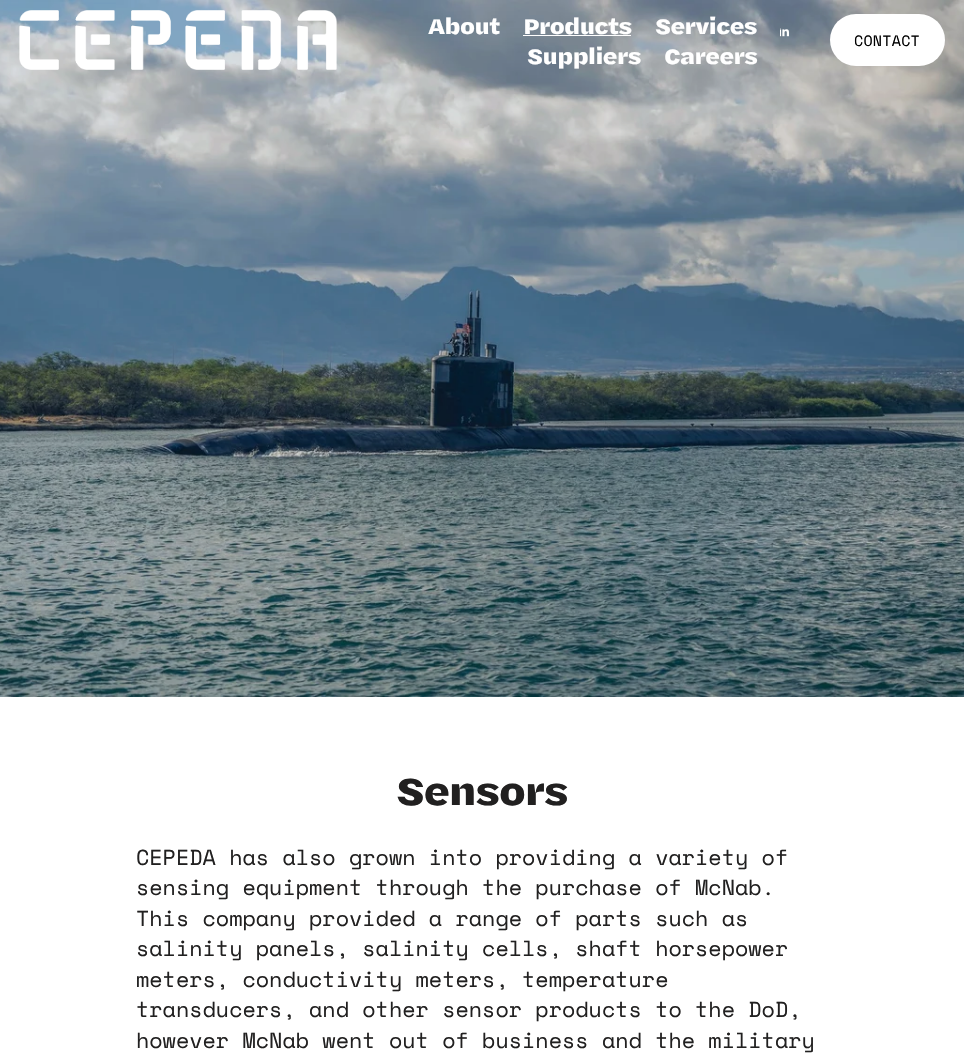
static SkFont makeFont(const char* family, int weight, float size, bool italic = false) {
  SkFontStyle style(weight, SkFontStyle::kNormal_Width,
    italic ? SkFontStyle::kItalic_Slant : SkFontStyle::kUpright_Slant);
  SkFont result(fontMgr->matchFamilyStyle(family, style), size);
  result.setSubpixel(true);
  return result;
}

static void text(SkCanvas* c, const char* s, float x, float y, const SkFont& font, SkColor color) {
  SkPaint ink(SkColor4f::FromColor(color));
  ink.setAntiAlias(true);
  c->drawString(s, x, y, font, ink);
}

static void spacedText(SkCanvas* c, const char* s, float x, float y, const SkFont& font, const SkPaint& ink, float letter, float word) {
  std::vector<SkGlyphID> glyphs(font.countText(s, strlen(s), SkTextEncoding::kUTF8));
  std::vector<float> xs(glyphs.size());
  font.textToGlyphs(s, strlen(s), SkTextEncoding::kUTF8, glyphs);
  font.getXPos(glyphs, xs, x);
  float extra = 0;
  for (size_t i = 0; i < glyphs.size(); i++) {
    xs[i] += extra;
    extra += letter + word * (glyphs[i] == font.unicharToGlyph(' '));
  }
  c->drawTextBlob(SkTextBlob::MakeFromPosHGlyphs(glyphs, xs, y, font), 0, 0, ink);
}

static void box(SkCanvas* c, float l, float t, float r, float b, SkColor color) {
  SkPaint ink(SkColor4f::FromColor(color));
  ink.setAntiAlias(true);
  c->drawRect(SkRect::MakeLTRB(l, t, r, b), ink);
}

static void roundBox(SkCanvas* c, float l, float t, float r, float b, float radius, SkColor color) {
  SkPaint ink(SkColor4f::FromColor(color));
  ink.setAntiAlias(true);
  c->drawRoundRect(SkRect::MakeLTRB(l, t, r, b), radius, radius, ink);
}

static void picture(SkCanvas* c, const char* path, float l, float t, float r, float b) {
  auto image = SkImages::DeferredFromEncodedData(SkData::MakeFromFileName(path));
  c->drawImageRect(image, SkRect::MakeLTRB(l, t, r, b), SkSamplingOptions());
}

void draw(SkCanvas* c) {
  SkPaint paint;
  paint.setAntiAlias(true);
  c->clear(0xffffffff);
  picture(c, "img_03.png", 0, 0, 964, 697);
  picture(c, "img_01.png", 19, 10, 337, 70);
  SkFont face1 = makeFont("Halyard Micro", 700, 21.75f);
  paint.setColor(0xffffffff);
  spacedText(c, "About", 428, 34, face1, paint, -1, 0);
  box(c, 523, 35, 631, 36, 0xffffffff);
  spacedText(c, "Products", 523, 34, face1, paint, -1, 0);
  spacedText(c, "Services", 655, 34, face1, paint, -1, 0);
  spacedText(c, "Suppliers", 527, 64, face1, paint, -1, 0);
  spacedText(c, "Careers", 664, 64, face1, paint, -1, 0);
  picture(c, "img_02.png", 780, 28, 789, 37);
  roundBox(c, 830, 14, 945, 66, 26, 0xffffffff);
  SkFont face2 = makeFont("Space Mono", 400, 15);
  paint.setColor(0xff000000);
  spacedText(c, "CONTACT", 854, 46, face2, paint, 0.25f, 0);
  SkFont face3 = makeFont("Halyard Micro", 700, 39);
  paint.setColor(0xff212020);
  spacedText(c, "Sensors", 396, 805, face3, paint, -2, 0);
  SkFont face4 = makeFont("Space Mono", 400, 21.75f);
  text(c, "CEPEDA has also grown into providing a variety of", 136, 865, face4, 0xff212020);
  text(c, "sensing equipment through the purchase of McNab.", 136, 895, face4, 0xff212020);
  text(c, "This company provided a range of parts such as", 136, 926, face4, 0xff212020);
  text(c, "salinity panels, salinity cells, shaft horsepower", 136, 956, face4, 0xff212020);
  text(c, "meters, conductivity meters, temperature", 136, 987, face4, 0xff212020);
  text(c, "transducers, and other sensor products to the DoD,", 136, 1017, face4, 0xff212020);
  text(c, "however McNab went out of business and the military", 136, 1048, face4, 0xff212020);
}
